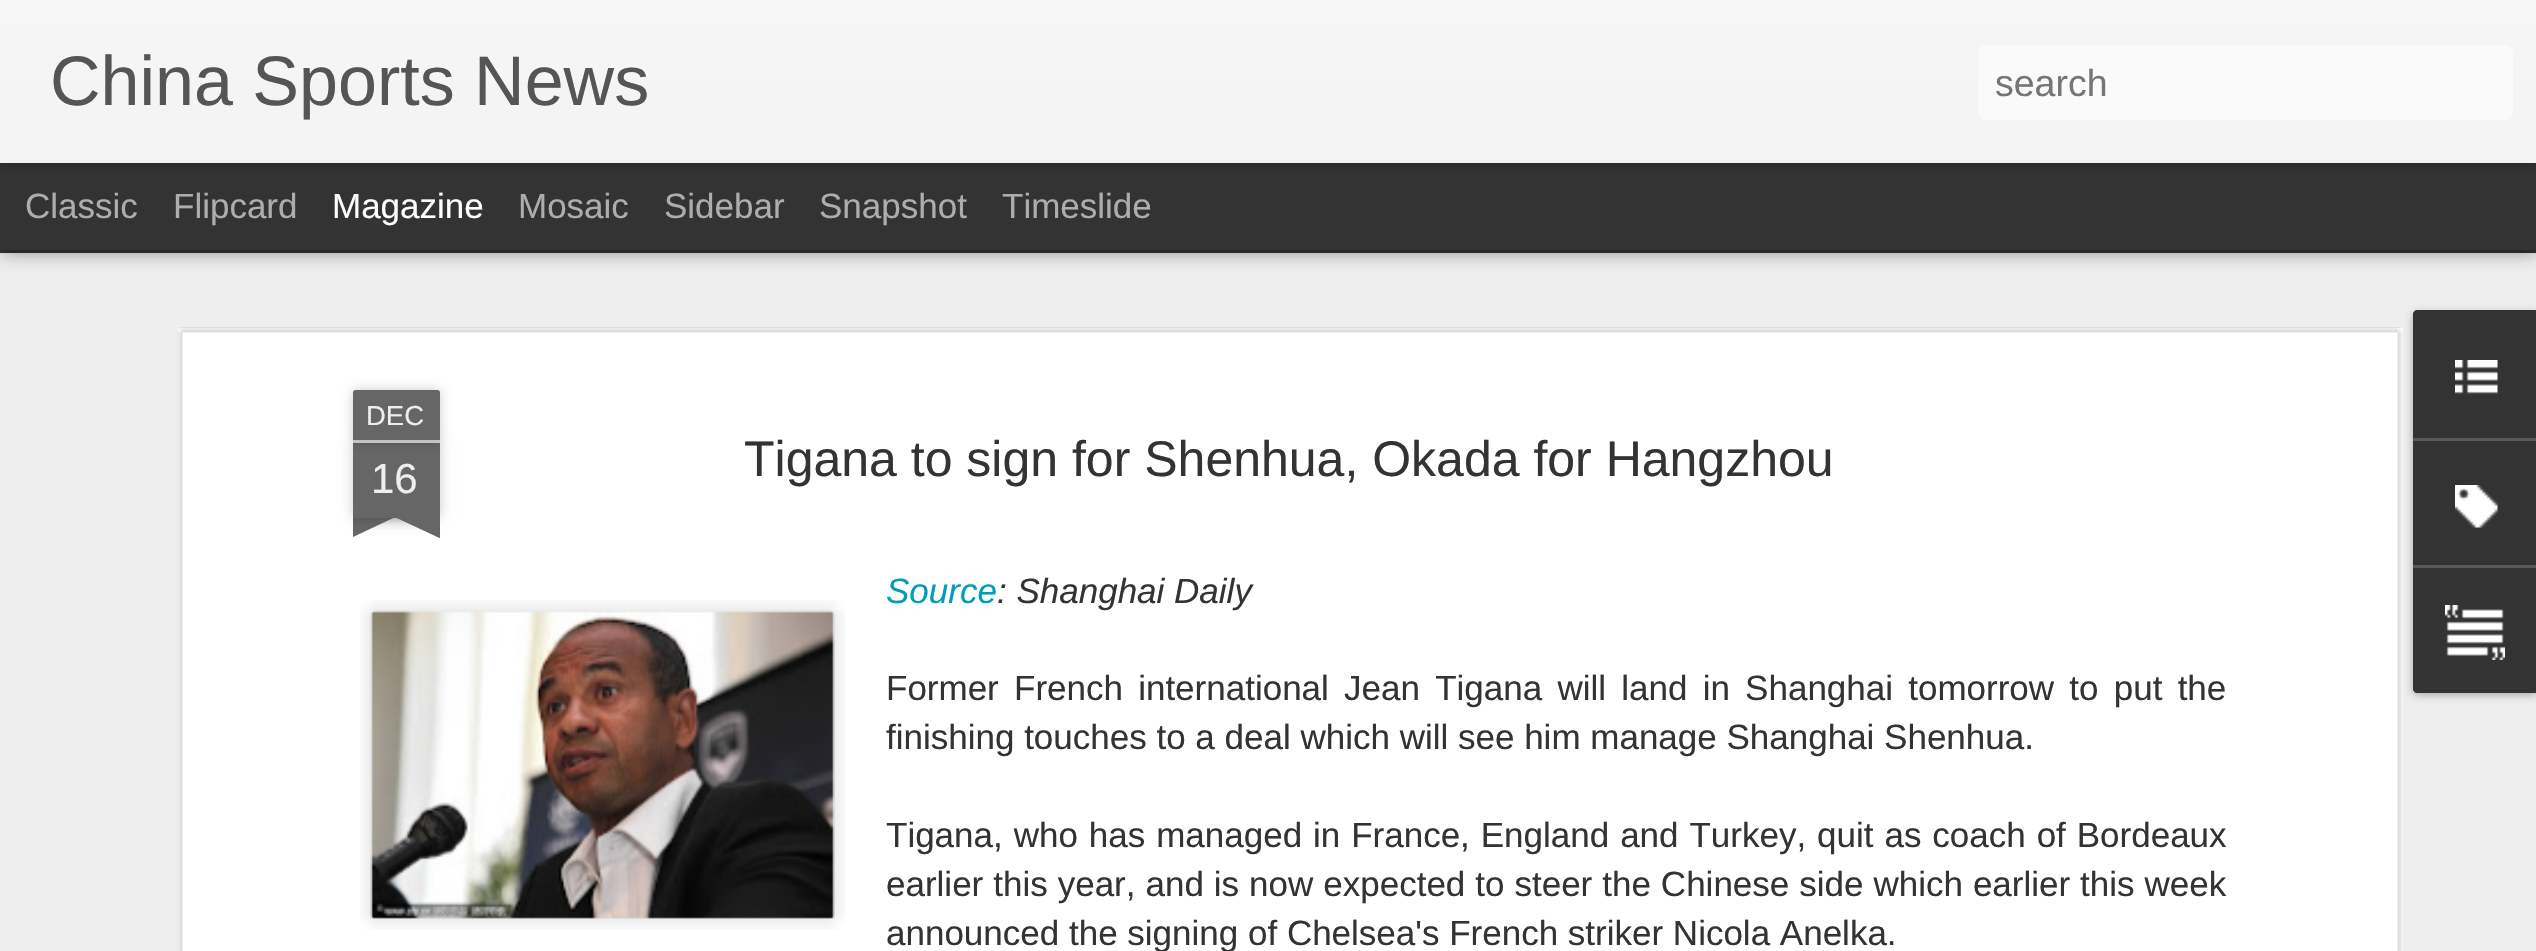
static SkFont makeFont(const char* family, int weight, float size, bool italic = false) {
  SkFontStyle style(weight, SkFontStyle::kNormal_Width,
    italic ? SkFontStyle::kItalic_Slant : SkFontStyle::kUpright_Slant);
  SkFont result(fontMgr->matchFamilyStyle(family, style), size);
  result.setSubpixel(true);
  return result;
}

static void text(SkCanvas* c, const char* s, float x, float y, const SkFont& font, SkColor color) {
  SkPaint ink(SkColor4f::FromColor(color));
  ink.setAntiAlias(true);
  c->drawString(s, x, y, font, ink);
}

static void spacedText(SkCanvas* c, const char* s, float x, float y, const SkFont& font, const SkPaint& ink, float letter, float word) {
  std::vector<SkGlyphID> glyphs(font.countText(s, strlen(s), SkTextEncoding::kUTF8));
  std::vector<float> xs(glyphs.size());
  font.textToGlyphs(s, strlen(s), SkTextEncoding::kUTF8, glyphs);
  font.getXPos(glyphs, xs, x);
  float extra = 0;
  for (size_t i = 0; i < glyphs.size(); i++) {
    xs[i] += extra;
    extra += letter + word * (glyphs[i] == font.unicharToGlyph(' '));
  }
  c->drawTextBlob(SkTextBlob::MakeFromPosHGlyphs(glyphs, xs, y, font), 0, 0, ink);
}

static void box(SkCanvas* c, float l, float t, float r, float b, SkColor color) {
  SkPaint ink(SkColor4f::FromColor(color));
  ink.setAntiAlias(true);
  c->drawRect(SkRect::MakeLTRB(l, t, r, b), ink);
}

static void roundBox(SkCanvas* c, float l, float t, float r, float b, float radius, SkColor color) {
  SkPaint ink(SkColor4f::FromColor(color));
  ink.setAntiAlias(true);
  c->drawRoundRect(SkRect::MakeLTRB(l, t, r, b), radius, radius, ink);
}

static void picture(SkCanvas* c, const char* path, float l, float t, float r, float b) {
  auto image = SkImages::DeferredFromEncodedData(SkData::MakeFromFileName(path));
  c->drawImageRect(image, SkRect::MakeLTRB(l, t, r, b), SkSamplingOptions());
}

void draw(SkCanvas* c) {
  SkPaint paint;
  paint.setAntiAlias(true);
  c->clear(0xff333333);
  box(c, 0, 253, 2536, 951, 0xffeeeeee);
  paint.setColor(0x80000000);
  paint.setMaskFilter(SkMaskFilter::MakeBlur(kNormal_SkBlurStyle, 10));
  c->drawRect(SkRect::MakeLTRB(0, 163, 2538, 250), paint);
  paint.setMaskFilter(nullptr);
  box(c, 0, 163, 2536, 250, 0xff333333);
  paint.setColor(0x4d000000);
  paint.setMaskFilter(SkMaskFilter::MakeBlur(kNormal_SkBlurStyle, 6));
  c->drawRect(SkRect::MakeLTRB(0, 0, 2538, 163), paint);
  paint.setMaskFilter(nullptr);
  {
    const SkColor colors[] = {0xfff6f6f6, 0xfff3f3f3};
    const float stops[] = {0, 1};
    const SkPoint ends[] = {{0, 0}, {0, 163}};
    paint.setShader(SkGradientShader::MakeLinear(ends, colors, stops, 2, SkTileMode::kClamp));
    paint.setAlpha(255);
  }
  c->drawRect(SkRect::MakeLTRB(0, 0, 2536, 163), paint);
  SkFont face1 = makeFont("Liberation Sans", 400, 70);
  text(c, "China Sports News", 50, 105, face1, 0xff555555);
  roundBox(c, 1978, 45, 2513, 120, 8, 0xfffafafa);
  SkFont face2 = makeFont("Liberation Sans", 400, 37.5f);
  text(c, "search", 1995, 96, face2, 0xff757575);
  SkFont face3 = makeFont("Liberation Sans", 400, 35);
  text(c, "Classic", 25, 218, face3, 0xffadadad);
  text(c, "Flipcard", 173, 218, face3, 0xffadadad);
  text(c, "Magazine", 332, 218, face3, 0xffffffff);
  text(c, "Mosaic", 518, 218, face3, 0xffadadad);
  text(c, "Sidebar", 664, 218, face3, 0xffadadad);
  text(c, "Snapshot", 819, 218, face3, 0xffadadad);
  text(c, "Timeslide", 1002, 218, face3, 0xffadadad);
  box(c, 178, 328, 2403, 951, 0xffffffff);
  picture(c, "img_01.png", 177, 327, 2403, 951);
  paint.setShader(nullptr);
  paint.setColor(0x33000000);
  paint.setMaskFilter(SkMaskFilter::MakeBlur(kNormal_SkBlurStyle, 6));
  c->drawRect(SkRect::MakeLTRB(353, 443, 440, 518), paint);
  paint.setMaskFilter(nullptr);
  box(c, 353, 443, 440, 518, 0xff666666);
  paint.setMaskFilter(SkMaskFilter::MakeBlur(kNormal_SkBlurStyle, 6));
  c->drawRoundRect(SkRect::MakeLTRB(353, 390, 440, 443), 2.5f, 2.5f, paint);
  paint.setMaskFilter(nullptr);
  paint.setColor(0xff666666);
  c->drawPath(SkPathBuilder().moveTo(355.5f, 390).lineTo(437.5f, 390).cubicTo(439, 390, 440, 391, 440, 392.5f).lineTo(440, 443).lineTo(353, 443).lineTo(353, 392.5f).cubicTo(353, 391, 354, 390, 355.5f, 390).close().detach(), paint);
  box(c, 353, 440, 440, 443, 0xffc2c2c2);
  SkFont face4 = makeFont("Liberation Sans", 400, 27.5f);
  text(c, "DEC", 366, 425, face4, 0xffeeeeee);
  SkFont face5 = makeFont("Liberation Sans", 400, 42);
  text(c, "16", 371, 493, face5, 0xffeeeeee);
  c->save();
  c->clipRect(SkRect::MakeLTRB(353, 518, 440, 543));
  paint.setColor(0x33000000);
  paint.setMaskFilter(SkMaskFilter::MakeBlur(kNormal_SkBlurStyle, 6.5f));
  c->drawRect(SkRect::MakeLTRB(330, 493, 455, 518), paint);
  paint.setMaskFilter(nullptr);
  c->restore();
  c->save();
  c->clipRect(SkRect::MakeLTRB(353, 518, 440, 543));
  paint.setColor(0xff666666);
  c->drawPath(SkPathBuilder().moveTo(329, 520).lineTo(443, 467).lineTo(453, 490).lineTo(340, 543).close().detach(), paint);
  c->restore();
  c->save();
  c->clipRect(SkRect::MakeLTRB(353, 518, 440, 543));
  paint.setColor(0x33000000);
  paint.setMaskFilter(SkMaskFilter::MakeBlur(kNormal_SkBlurStyle, 6.5f));
  c->drawRect(SkRect::MakeLTRB(338, 493, 463, 518), paint);
  paint.setMaskFilter(nullptr);
  c->restore();
  c->save();
  c->clipRect(SkRect::MakeLTRB(353, 518, 440, 543));
  paint.setColor(0xff666666);
  c->drawPath(SkPathBuilder().moveTo(347, 467).lineTo(461, 520).lineTo(450, 543).lineTo(337, 490).close().detach(), paint);
  c->restore();
  SkFont face6 = makeFont("Liberation Sans", 400, 50);
  text(c, "Tigana to sign for Shenhua, Okada for Hangzhou", 744, 476, face6, 0xff333333);
  SkFont face7 = makeFont("Liberation Sans", 400, 35, true);
  text(c, "Source", 886, 603, face7, 0xff009eb8);
  text(c, ": Shanghai Daily", 997, 603, face7, 0xff333333);
  picture(c, "img_02.png", 360, 600, 845, 930);
  picture(c, "img_03.png", 370, 610, 835, 919);
  paint.setColor(0xff333333);
  spacedText(c, "Former French international Jean Tigana will land in Shanghai tomorrow to put the", 886, 700, face3, paint, 0, 5.5f);
  text(c, "finishing touches to a deal which will see him manage Shanghai Shenhua.", 886, 749, face3, 0xff333333);
  spacedText(c, "Tigana, who has managed in France, England and Turkey, quit as coach of Bordeaux", 886, 847, face3, paint, 0, 1.2f);
  spacedText(c, "earlier this year, and is now expected to steer the Chinese side which earlier this week", 886, 896, face3, paint, 0, 0.25f);
  text(c, "announced the signing of Chelsea's French striker Nicola Anelka.", 886, 945, face3, 0xff333333);
  paint.setColor(0x4d000000);
  paint.setMaskFilter(SkMaskFilter::MakeBlur(kNormal_SkBlurStyle, 4));
  c->drawRoundRect(SkRect::MakeLTRB(2413, 313, 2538, 695), 5, 5, paint);
  paint.setMaskFilter(nullptr);
  paint.setColor(0xff333333);
  c->drawPath(SkPathBuilder().moveTo(2418, 310).lineTo(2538, 310).lineTo(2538, 693).lineTo(2418, 693).cubicTo(2415, 693, 2413, 691, 2413, 688).lineTo(2413, 315).cubicTo(2413, 312, 2415, 310, 2418, 310).close().detach(), paint);
  c->drawPath(SkPathBuilder().moveTo(2418, 310).lineTo(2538, 310).lineTo(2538, 438).lineTo(2413, 438).lineTo(2413, 315).cubicTo(2413, 312, 2415, 310, 2418, 310).close().detach(), paint);
  picture(c, "img_04.png", 2455, 360, 2498, 394);
  box(c, 2413, 438, 2536, 441, 0xff585858);
  picture(c, "img_05.png", 2455, 485, 2498, 528);
  c->drawPath(SkPathBuilder().moveTo(2413, 565).lineTo(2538, 565).lineTo(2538, 693).lineTo(2418, 693).cubicTo(2415, 693, 2413, 691, 2413, 688).close().detach(), paint);
  box(c, 2413, 565, 2536, 568, 0xff585858);
  picture(c, "img_06.png", 2445, 605, 2505, 660);
}
